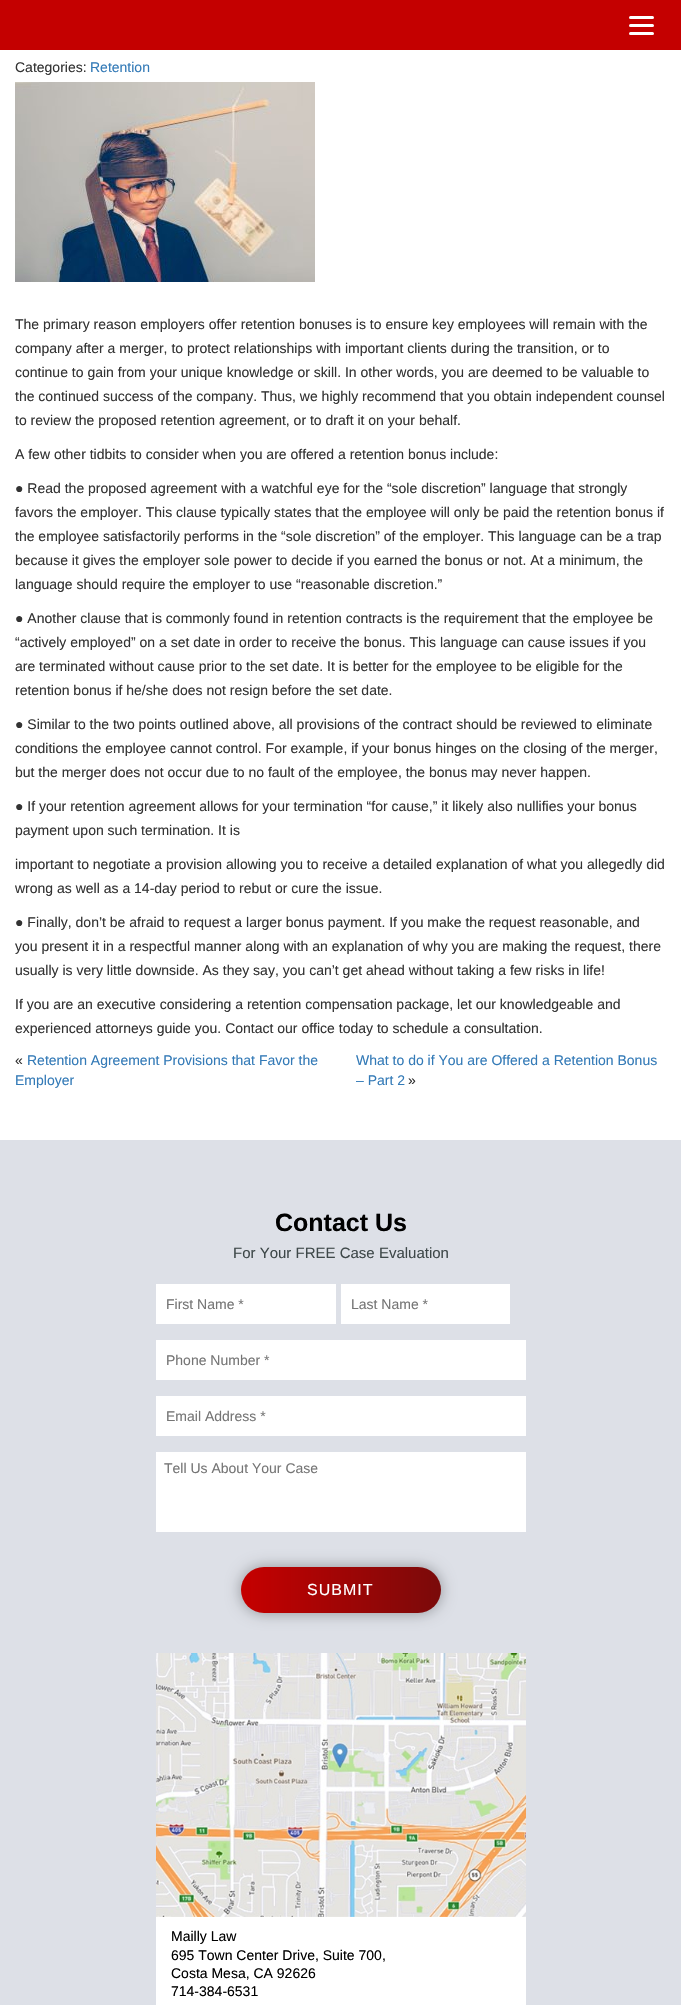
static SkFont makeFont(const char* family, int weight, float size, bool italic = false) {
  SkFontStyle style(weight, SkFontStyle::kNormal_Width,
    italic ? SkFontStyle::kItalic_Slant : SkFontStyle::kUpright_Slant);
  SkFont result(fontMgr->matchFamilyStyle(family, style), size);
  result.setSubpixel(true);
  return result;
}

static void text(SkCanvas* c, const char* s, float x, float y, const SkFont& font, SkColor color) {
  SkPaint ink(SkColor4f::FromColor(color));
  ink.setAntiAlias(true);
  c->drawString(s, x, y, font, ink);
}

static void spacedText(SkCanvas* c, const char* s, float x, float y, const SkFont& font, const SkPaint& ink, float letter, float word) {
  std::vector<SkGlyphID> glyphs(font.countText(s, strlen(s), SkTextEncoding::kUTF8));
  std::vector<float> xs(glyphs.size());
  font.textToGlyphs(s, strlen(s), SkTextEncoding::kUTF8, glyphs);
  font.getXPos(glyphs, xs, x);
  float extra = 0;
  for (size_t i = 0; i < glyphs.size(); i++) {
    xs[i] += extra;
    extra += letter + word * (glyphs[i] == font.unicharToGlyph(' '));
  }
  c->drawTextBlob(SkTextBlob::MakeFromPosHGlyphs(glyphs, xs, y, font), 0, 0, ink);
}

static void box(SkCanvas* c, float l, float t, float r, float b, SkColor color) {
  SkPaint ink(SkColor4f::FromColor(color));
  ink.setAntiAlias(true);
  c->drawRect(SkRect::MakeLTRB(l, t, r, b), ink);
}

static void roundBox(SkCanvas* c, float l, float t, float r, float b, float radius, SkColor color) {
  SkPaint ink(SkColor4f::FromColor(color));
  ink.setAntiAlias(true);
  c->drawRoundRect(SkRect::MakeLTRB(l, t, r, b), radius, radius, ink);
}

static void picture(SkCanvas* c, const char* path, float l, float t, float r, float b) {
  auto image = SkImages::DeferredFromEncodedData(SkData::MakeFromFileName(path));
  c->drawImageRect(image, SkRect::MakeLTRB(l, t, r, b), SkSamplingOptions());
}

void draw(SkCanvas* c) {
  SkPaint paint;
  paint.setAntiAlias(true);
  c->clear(0xffffffff);
  box(c, 0, 0, 681, 50, 0xffc40000);
  roundBox(c, 629, 24, 654, 27, 1.5f, 0xffffffff);
  roundBox(c, 629, 16, 654, 19, 1.5f, 0xffffffff);
  roundBox(c, 629, 32, 654, 35, 1.5f, 0xffffffff);
  SkFont face1 = makeFont("Liberation Sans", 400, 14);
  text(c, "Categories:", 15, 72, face1, 0xff333333);
  text(c, "Retention", 90, 72, face1, 0xff337ab7);
  picture(c, "img_01.png", 15, 82, 315, 282);
  text(c, "The primary reason employers offer retention bonuses is to ensure key employees will remain with the", 15, 329, face1, 0xff333333);
  text(c, "company after a merger, to protect relationships with important clients during the transition, or to", 15, 353, face1, 0xff333333);
  text(c, "continue to gain from your unique knowledge or skill. In other words, you are deemed to be valuable to", 15, 377, face1, 0xff333333);
  text(c, "the continued success of the company. Thus, we highly recommend that you obtain independent counsel", 15, 401, face1, 0xff333333);
  text(c, "to review the proposed retention agreement, or to draft it on your behalf.", 15, 425, face1, 0xff333333);
  text(c, "A few other tidbits to consider when you are offered a retention bonus include:", 15, 459, face1, 0xff333333);
  text(c, "● Read the proposed agreement with a watchful eye for the “sole discretion” language that strongly", 15, 493, face1, 0xff333333);
  text(c, "favors the employer. This clause typically states that the employee will only be paid the retention bonus if", 15, 517, face1, 0xff333333);
  text(c, "the employee satisfactorily performs in the “sole discretion” of the employer. This language can be a trap", 15, 541, face1, 0xff333333);
  text(c, "because it gives the employer sole power to decide if you earned the bonus or not. At a minimum, the", 15, 565, face1, 0xff333333);
  text(c, "language should require the employer to use “reasonable discretion.”", 15, 589, face1, 0xff333333);
  text(c, "● Another clause that is commonly found in retention contracts is the requirement that the employee be", 15, 623, face1, 0xff333333);
  text(c, "“actively employed” on a set date in order to receive the bonus. This language can cause issues if you", 15, 647, face1, 0xff333333);
  text(c, "are terminated without cause prior to the set date. It is better for the employee to be eligible for the", 15, 671, face1, 0xff333333);
  text(c, "retention bonus if he/she does not resign before the set date.", 15, 695, face1, 0xff333333);
  text(c, "● Similar to the two points outlined above, all provisions of the contract should be reviewed to eliminate", 15, 729, face1, 0xff333333);
  text(c, "conditions the employee cannot control. For example, if your bonus hinges on the closing of the merger,", 15, 753, face1, 0xff333333);
  text(c, "but the merger does not occur due to no fault of the employee, the bonus may never happen.", 15, 777, face1, 0xff333333);
  text(c, "● If your retention agreement allows for your termination “for cause,” it likely also nullifies your bonus", 15, 811, face1, 0xff333333);
  text(c, "payment upon such termination. It is", 15, 835, face1, 0xff333333);
  text(c, "important to negotiate a provision allowing you to receive a detailed explanation of what you allegedly did", 15, 869, face1, 0xff333333);
  text(c, "wrong as well as a 14-day period to rebut or cure the issue.", 15, 893, face1, 0xff333333);
  text(c, "● Finally, don’t be afraid to request a larger bonus payment. If you make the request reasonable, and", 15, 927, face1, 0xff333333);
  text(c, "you present it in a respectful manner along with an explanation of why you are making the request, there", 15, 951, face1, 0xff333333);
  text(c, "usually is very little downside. As they say, you can’t get ahead without taking a few risks in life!", 15, 975, face1, 0xff333333);
  text(c, "If you are an executive considering a retention compensation package, let our knowledgeable and", 15, 1009, face1, 0xff333333);
  text(c, "experienced attorneys guide you. Contact our office today to schedule a consultation.", 15, 1033, face1, 0xff333333);
  text(c, "«", 15, 1065, face1, 0xff333333);
  text(c, "Retention Agreement Provisions that Favor the", 27, 1065, face1, 0xff337ab7);
  text(c, "Employer", 15, 1085, face1, 0xff337ab7);
  text(c, "What to do if You are Offered a Retention Bonus", 356, 1065, face1, 0xff337ab7);
  text(c, "– Part 2", 356, 1085, face1, 0xff337ab7);
  text(c, "»", 408, 1085, face1, 0xff333333);
  box(c, 0, 1140, 681, 2005, 0xffdde0e7);
  SkFont face2 = makeFont("Liberation Sans", 700, 25);
  text(c, "Contact Us", 275, 1231, face2, 0xff000000);
  SkFont face3 = makeFont("Liberation Sans", 400, 15);
  text(c, "For Your FREE Case Evaluation", 233, 1258, face3, 0xff3e4849);
  box(c, 156, 1284, 336, 1324, 0xffffffff);
  text(c, "First Name *", 166, 1309, face1, 0xff757575);
  box(c, 341, 1284, 510, 1324, 0xffffffff);
  text(c, "Last Name *", 351, 1309, face1, 0xff757575);
  box(c, 156, 1340, 526, 1380, 0xffffffff);
  text(c, "Phone Number *", 166, 1365, face1, 0xff757575);
  box(c, 156, 1396, 526, 1436, 0xffffffff);
  text(c, "Email Address *", 166, 1421, face1, 0xff757575);
  box(c, 156, 1452, 526, 1532, 0xffffffff);
  text(c, "Tell Us About Your Case", 164, 1473, face1, 0xff757575);
  paint.setColor(0x59000000);
  paint.setMaskFilter(SkMaskFilter::MakeBlur(kNormal_SkBlurStyle, 7.5f));
  c->drawRoundRect(SkRect::MakeLTRB(241, 1567, 441, 1613), 23, 23, paint);
  paint.setMaskFilter(nullptr);
  {
    const SkColor colors[] = {0xffc60000, 0xff7a0a0a};
    const float stops[] = {0, 1};
    const SkPoint ends[] = {{241, 1590}, {441, 1590}};
    paint.setShader(SkGradientShader::MakeLinear(ends, colors, stops, 2, SkTileMode::kClamp));
    paint.setAlpha(255);
  }
  c->drawRoundRect(SkRect::MakeLTRB(241, 1567, 441, 1613), 23, 23, paint);
  SkFont face4 = makeFont("Liberation Sans", 400, 16);
  paint.setShader(nullptr);
  paint.setColor(0xffffffff);
  spacedText(c, "SUBMIT", 307, 1595, face4, paint, 1, 0);
  picture(c, "img_02.png", 156, 1653, 526, 1917);
  box(c, 156, 1917, 526, 2005, 0xffffffff);
  text(c, "Mailly Law", 171, 1941, face1, 0xff000000);
  text(c, "695 Town Center Drive, Suite 700,", 171, 1960, face1, 0xff000000);
  text(c, "Costa Mesa, CA 92626", 171, 1978, face1, 0xff000000);
  text(c, "714-384-6531", 171, 1996, face1, 0xff000000);
}
